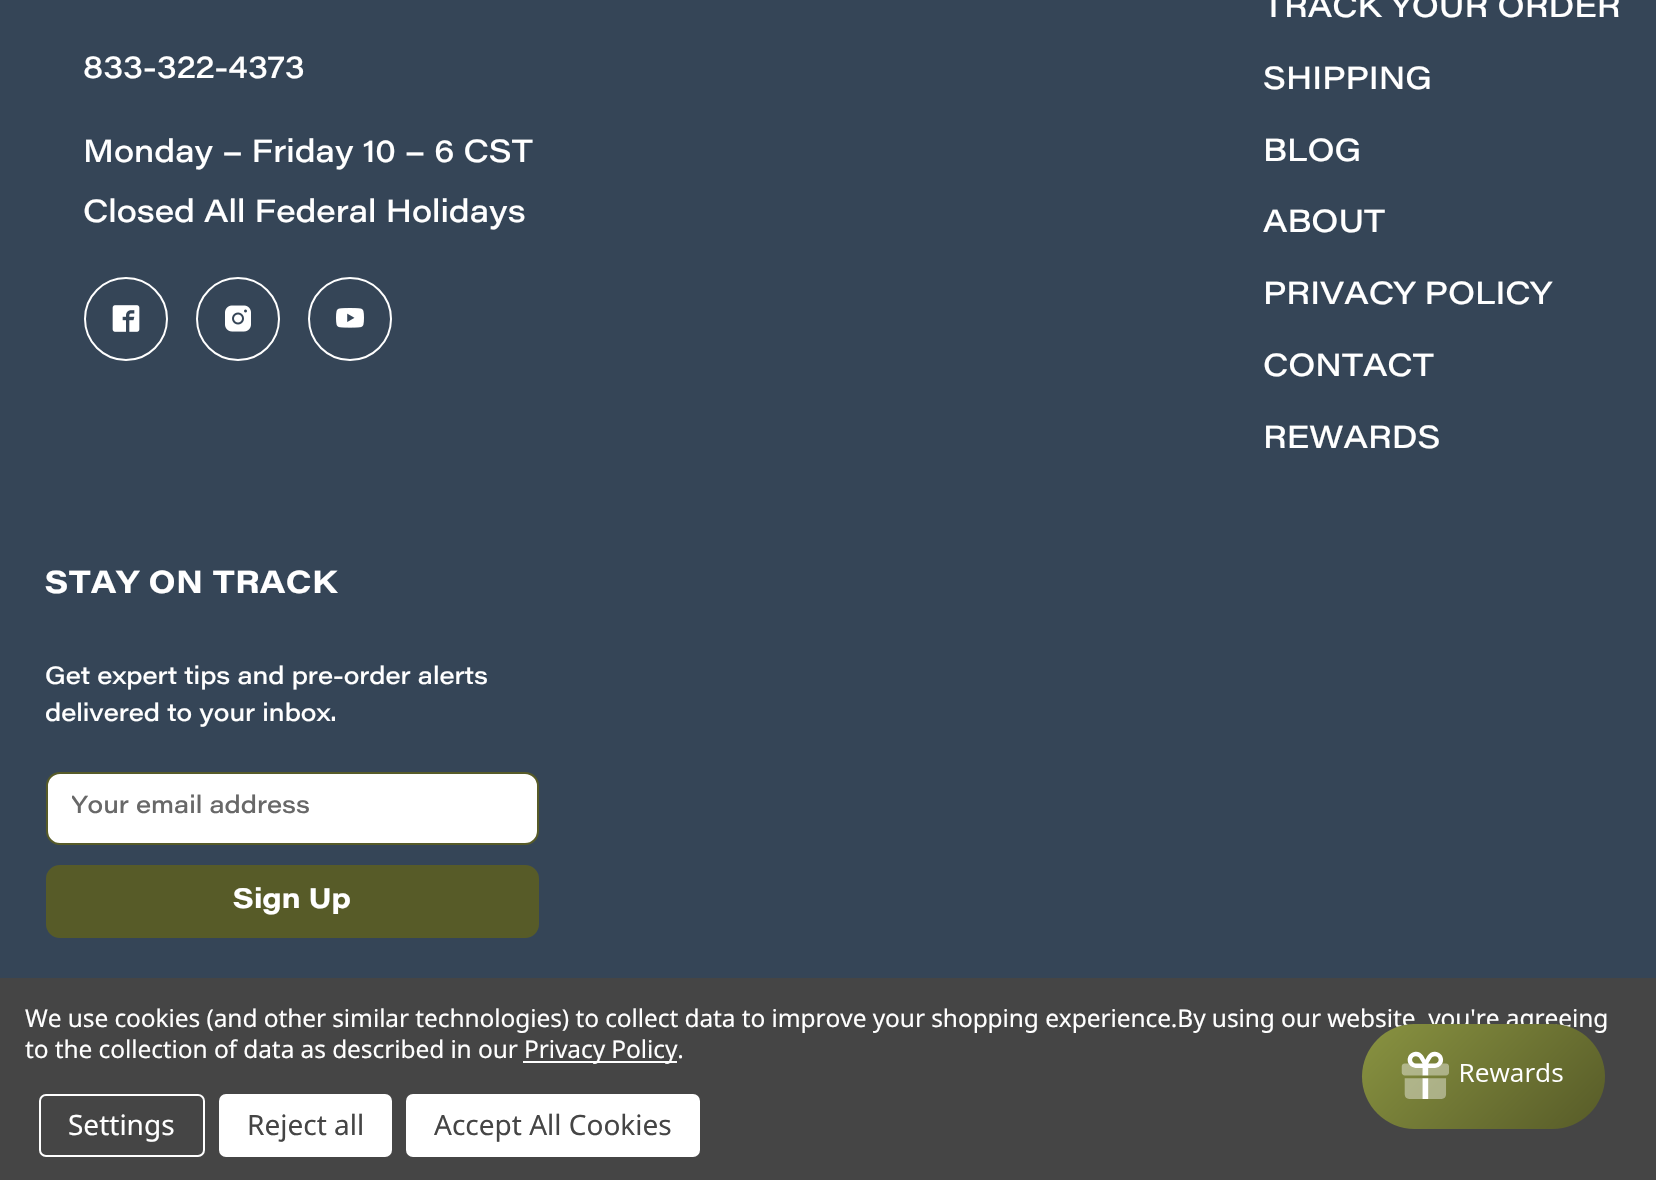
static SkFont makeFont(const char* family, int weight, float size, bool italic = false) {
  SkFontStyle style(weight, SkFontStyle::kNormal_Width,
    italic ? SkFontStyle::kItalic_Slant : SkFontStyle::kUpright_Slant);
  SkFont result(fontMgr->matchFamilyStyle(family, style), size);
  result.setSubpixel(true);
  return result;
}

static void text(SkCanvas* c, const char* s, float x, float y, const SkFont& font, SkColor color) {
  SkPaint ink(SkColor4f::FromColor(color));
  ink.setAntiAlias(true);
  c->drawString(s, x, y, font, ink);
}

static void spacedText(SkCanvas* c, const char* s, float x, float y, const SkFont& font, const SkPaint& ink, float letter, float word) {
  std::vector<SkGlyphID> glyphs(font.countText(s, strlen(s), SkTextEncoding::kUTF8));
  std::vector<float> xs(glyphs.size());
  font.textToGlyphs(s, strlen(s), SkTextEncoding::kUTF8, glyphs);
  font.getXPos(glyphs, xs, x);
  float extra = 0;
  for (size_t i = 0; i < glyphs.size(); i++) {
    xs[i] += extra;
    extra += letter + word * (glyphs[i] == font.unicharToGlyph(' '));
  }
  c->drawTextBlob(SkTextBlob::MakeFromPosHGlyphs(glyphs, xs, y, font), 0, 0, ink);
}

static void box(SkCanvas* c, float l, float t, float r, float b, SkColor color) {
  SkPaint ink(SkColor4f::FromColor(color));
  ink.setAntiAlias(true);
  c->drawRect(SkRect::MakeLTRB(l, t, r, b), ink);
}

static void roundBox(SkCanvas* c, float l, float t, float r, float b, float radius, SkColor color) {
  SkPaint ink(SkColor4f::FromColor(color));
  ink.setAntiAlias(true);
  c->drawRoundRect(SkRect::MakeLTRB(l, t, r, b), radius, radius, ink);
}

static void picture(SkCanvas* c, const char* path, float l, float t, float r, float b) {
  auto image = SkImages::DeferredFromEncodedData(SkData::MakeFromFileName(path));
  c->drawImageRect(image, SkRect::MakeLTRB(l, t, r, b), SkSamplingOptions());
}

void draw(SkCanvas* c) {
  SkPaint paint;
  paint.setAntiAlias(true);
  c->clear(0xff354557);
  SkFont face1 = makeFont("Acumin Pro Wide", 500, 31.5f);
  text(c, "833-322-4373", 83, 78, face1, 0xffffffff);
  text(c, "Monday – Friday 10 – 6 CST", 83, 162, face1, 0xffffffff);
  text(c, "Closed All Federal Holidays", 83, 222, face1, 0xffffffff);
  paint.setStyle(SkPaint::kStroke_Style);
  paint.setStrokeWidth(2);
  paint.setColor(0xffffffff);
  c->drawCircle(126, 319, 41, paint);
  picture(c, "img_01.png", 112, 305, 140, 332);
  c->drawCircle(238, 319, 41, paint);
  picture(c, "img_02.png", 225, 305, 251, 332);
  c->drawCircle(350, 319, 41, paint);
  picture(c, "img_03.png", 336, 308, 364, 328);
  text(c, "TRACK YOUR ORDER", 1263, 17, face1, 0xffffffff);
  text(c, "SHIPPING", 1263, 89, face1, 0xffffffff);
  text(c, "BLOG", 1263, 161, face1, 0xffffffff);
  text(c, "ABOUT", 1263, 232, face1, 0xffffffff);
  text(c, "PRIVACY POLICY", 1263, 304, face1, 0xffffffff);
  text(c, "CONTACT", 1263, 376, face1, 0xffffffff);
  text(c, "REWARDS", 1263, 448, face1, 0xffffffff);
  SkFont face2 = makeFont("Acumin Pro Wide", 700, 31.5f);
  paint.setStyle(SkPaint::kFill_Style);
  spacedText(c, "STAY ON TRACK", 45, 593, face2, paint, 0.5f, 0);
  SkFont face3 = makeFont("Acumin Pro Wide", 500, 24.5f);
  text(c, "Get expert tips and pre-order alerts", 45, 684, face3, 0xffffffff);
  text(c, "delivered to your inbox.", 45, 721, face3, 0xffffffff);
  c->drawRoundRect(SkRect::MakeLTRB(47, 773, 538, 844), 13, 13, paint);
  paint.setStyle(SkPaint::kStroke_Style);
  paint.setColor(0xff575b28);
  c->drawRoundRect(SkRect::MakeLTRB(47, 773, 538, 844), 13, 13, paint);
  c->save();
  c->clipRect(SkRect::MakeLTRB(72, 793, 513, 823));
  text(c, "Your email address", 71, 813, face3, 0xff686868);
  c->restore();
  paint.setStyle(SkPaint::kFill_Style);
  c->drawRoundRect(SkRect::MakeLTRB(47, 866, 538, 937), 13, 13, paint);
  paint.setStyle(SkPaint::kStroke_Style);
  c->drawRoundRect(SkRect::MakeLTRB(47, 866, 538, 937), 13, 13, paint);
  SkFont face4 = makeFont("Acumin Pro Wide", 700, 28);
  text(c, "Sign Up", 233, 908, face4, 0xffffffff);
  box(c, 0, 978, 1656, 1180, 0xff454545);
  SkFont face5 = makeFont("Noto Sans", 400, 24.5f);
  paint.setStyle(SkPaint::kFill_Style);
  paint.setColor(0xffffffff);
  spacedText(c, "We use cookies (and other similar technologies) to collect data to improve your shopping experience.By using our website, you're agreeing", 25, 1027, face5, paint, -0.09f, 0);
  spacedText(c, "to the collection of data as described in our", 25, 1058, face5, paint, -0.09f, 0);
  box(c, 523, 1061, 677, 1063, 0xffffffff);
  spacedText(c, "Privacy Policy.", 524, 1058, face5, paint, -0.09f, 0);
  paint.setStyle(SkPaint::kStroke_Style);
  c->drawRoundRect(SkRect::MakeLTRB(40, 1095, 204, 1156), 6, 6, paint);
  SkFont face6 = makeFont("Noto Sans", 400, 28);
  text(c, "Settings", 68, 1135, face6, 0xffffffff);
  roundBox(c, 219, 1094, 392, 1157, 7, 0xffffffff);
  text(c, "Reject all", 247, 1135, face6, 0xff454545);
  roundBox(c, 406, 1094, 700, 1157, 7, 0xffffffff);
  text(c, "Accept All Cookies", 434, 1135, face6, 0xff454545);
  paint.setStyle(SkPaint::kFill_Style);
  {
    const SkColor colors[] = {0xff899341, 0xff575b28};
    const float stops[] = {0, 1};
    const SkPoint ends[] = {{1396, 989}, {1570, 1163}};
    paint.setShader(SkGradientShader::MakeLinear(ends, colors, stops, 2, SkTileMode::kClamp));
    paint.setAlpha(255);
  }
  c->drawRoundRect(SkRect::MakeLTRB(1362, 1024, 1605, 1129), 52.5f, 52.5f, paint);
  picture(c, "img_04.png", 1401, 1051, 1563, 1099);
}
